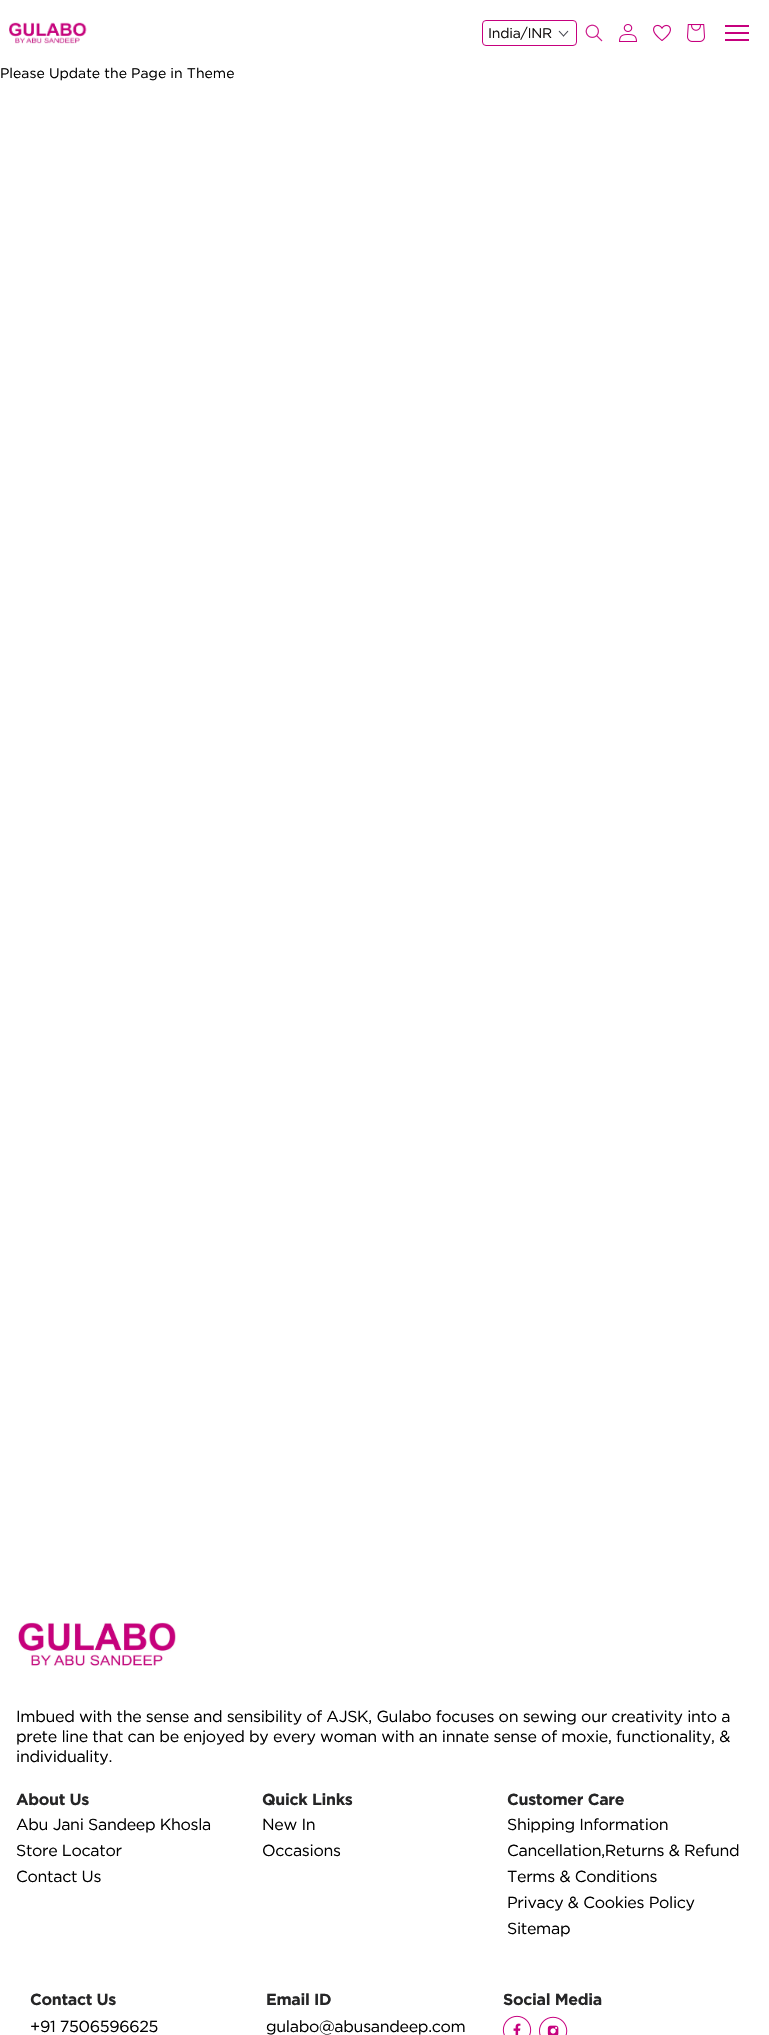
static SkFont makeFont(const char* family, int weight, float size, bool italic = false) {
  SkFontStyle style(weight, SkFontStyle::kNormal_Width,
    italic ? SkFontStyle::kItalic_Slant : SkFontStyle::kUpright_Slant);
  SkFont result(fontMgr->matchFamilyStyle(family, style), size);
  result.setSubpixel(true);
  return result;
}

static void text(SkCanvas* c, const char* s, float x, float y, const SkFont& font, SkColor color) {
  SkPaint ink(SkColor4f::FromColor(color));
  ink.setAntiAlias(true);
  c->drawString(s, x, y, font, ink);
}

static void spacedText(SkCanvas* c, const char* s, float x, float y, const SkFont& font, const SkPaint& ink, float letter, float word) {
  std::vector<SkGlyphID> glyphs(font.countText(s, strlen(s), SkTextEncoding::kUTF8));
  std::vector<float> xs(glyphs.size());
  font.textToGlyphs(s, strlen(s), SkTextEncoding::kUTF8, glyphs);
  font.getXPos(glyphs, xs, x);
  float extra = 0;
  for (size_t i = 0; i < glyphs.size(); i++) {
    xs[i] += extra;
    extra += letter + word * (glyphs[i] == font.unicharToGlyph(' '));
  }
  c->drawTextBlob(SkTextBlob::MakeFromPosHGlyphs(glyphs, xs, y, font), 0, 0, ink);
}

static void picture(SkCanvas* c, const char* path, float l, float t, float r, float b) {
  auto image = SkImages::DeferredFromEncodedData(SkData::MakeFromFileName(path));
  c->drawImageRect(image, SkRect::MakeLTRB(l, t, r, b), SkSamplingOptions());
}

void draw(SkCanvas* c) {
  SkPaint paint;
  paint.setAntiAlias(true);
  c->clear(0xffffffff);
  picture(c, "img_01.png", 9, 22, 87, 44);
  paint.setStyle(SkPaint::kStroke_Style);
  paint.setStrokeWidth(1);
  paint.setColor(0xffc6007e);
  c->drawRoundRect(SkRect::MakeLTRB(482.5f, 20.5f, 576.5f, 45.5f), 3.5f, 3.5f, paint);
  SkFont face1 = makeFont("Gotham", 400, 14);
  paint.setStyle(SkPaint::kFill_Style);
  paint.setColor(0xff110d0d);
  spacedText(c, "India/INR", 488, 38, face1, paint, -0.25f, 0);
  picture(c, "img_02.png", 558, 30, 569, 37);
  picture(c, "img_03.png", 585, 24, 603, 42);
  picture(c, "img_04.png", 619, 24, 637, 42);
  picture(c, "img_05.png", 653, 24, 671, 41);
  picture(c, "img_06.png", 687, 24, 705, 42);
  picture(c, "img_07.png", 725, 25, 749, 41);
  text(c, "Please Update the Page in Theme", 0, 78, face1, 0xff000000);
  picture(c, "img_08.png", 18, 1622, 176, 1666);
  SkFont face2 = makeFont("Gotham", 400, 16);
  paint.setColor(0xff000000);
  spacedText(c, "Imbued with the sense and sensibility of AJSK, Gulabo focuses on sewing our creativity into a", 16, 1722, face2, paint, -0.32f, 0);
  spacedText(c, "prete line that can be enjoyed by every woman with an innate sense of moxie, functionality, &", 16, 1742, face2, paint, -0.32f, 0);
  spacedText(c, "individuality.", 16, 1762, face2, paint, -0.32f, 0);
  SkFont face3 = makeFont("Gotham", 700, 16);
  paint.setColor(0xff262627);
  spacedText(c, "About Us", 16, 1805, face3, paint, -0.32f, 0);
  paint.setColor(0xff000000);
  spacedText(c, "Abu Jani Sandeep Khosla", 16, 1830, face2, paint, -0.32f, 0);
  spacedText(c, "Store Locator", 16, 1856, face2, paint, -0.32f, 0);
  spacedText(c, "Contact Us", 16, 1882, face2, paint, -0.32f, 0);
  paint.setColor(0xff262627);
  spacedText(c, "Quick Links", 262, 1805, face3, paint, -0.32f, 0);
  paint.setColor(0xff000000);
  spacedText(c, "New In", 262, 1830, face2, paint, -0.32f, 0);
  spacedText(c, "Occasions", 262, 1856, face2, paint, -0.32f, 0);
  paint.setColor(0xff262627);
  spacedText(c, "Customer Care", 507, 1805, face3, paint, -0.32f, 0);
  paint.setColor(0xff000000);
  spacedText(c, "Shipping Information", 507, 1830, face2, paint, -0.32f, 0);
  spacedText(c, "Cancellation,Returns & Refund", 507, 1856, face2, paint, -0.32f, 0);
  spacedText(c, "Terms & Conditions", 507, 1882, face2, paint, -0.32f, 0);
  spacedText(c, "Privacy & Cookies Policy", 507, 1908, face2, paint, -0.32f, 0);
  spacedText(c, "Sitemap", 507, 1934, face2, paint, -0.32f, 0);
  paint.setColor(0xff262627);
  spacedText(c, "Contact Us", 30, 2005, face3, paint, -0.32f, 0);
  paint.setColor(0xff000000);
  spacedText(c, "+91 7506596625", 30, 2032, face2, paint, -0.32f, 0);
  paint.setColor(0xff262627);
  spacedText(c, "Email ID", 266, 2005, face3, paint, -0.32f, 0);
  paint.setColor(0xff000000);
  spacedText(c, "gulabo@abusandeep.com", 266, 2032, face2, paint, -0.32f, 0);
  paint.setColor(0xff262627);
  spacedText(c, "Social Media", 503, 2005, face3, paint, -0.32f, 0);
  picture(c, "img_09.png", 502, 2015, 532, 2035);
  picture(c, "img_10.png", 539, 2016, 568, 2035);
}
